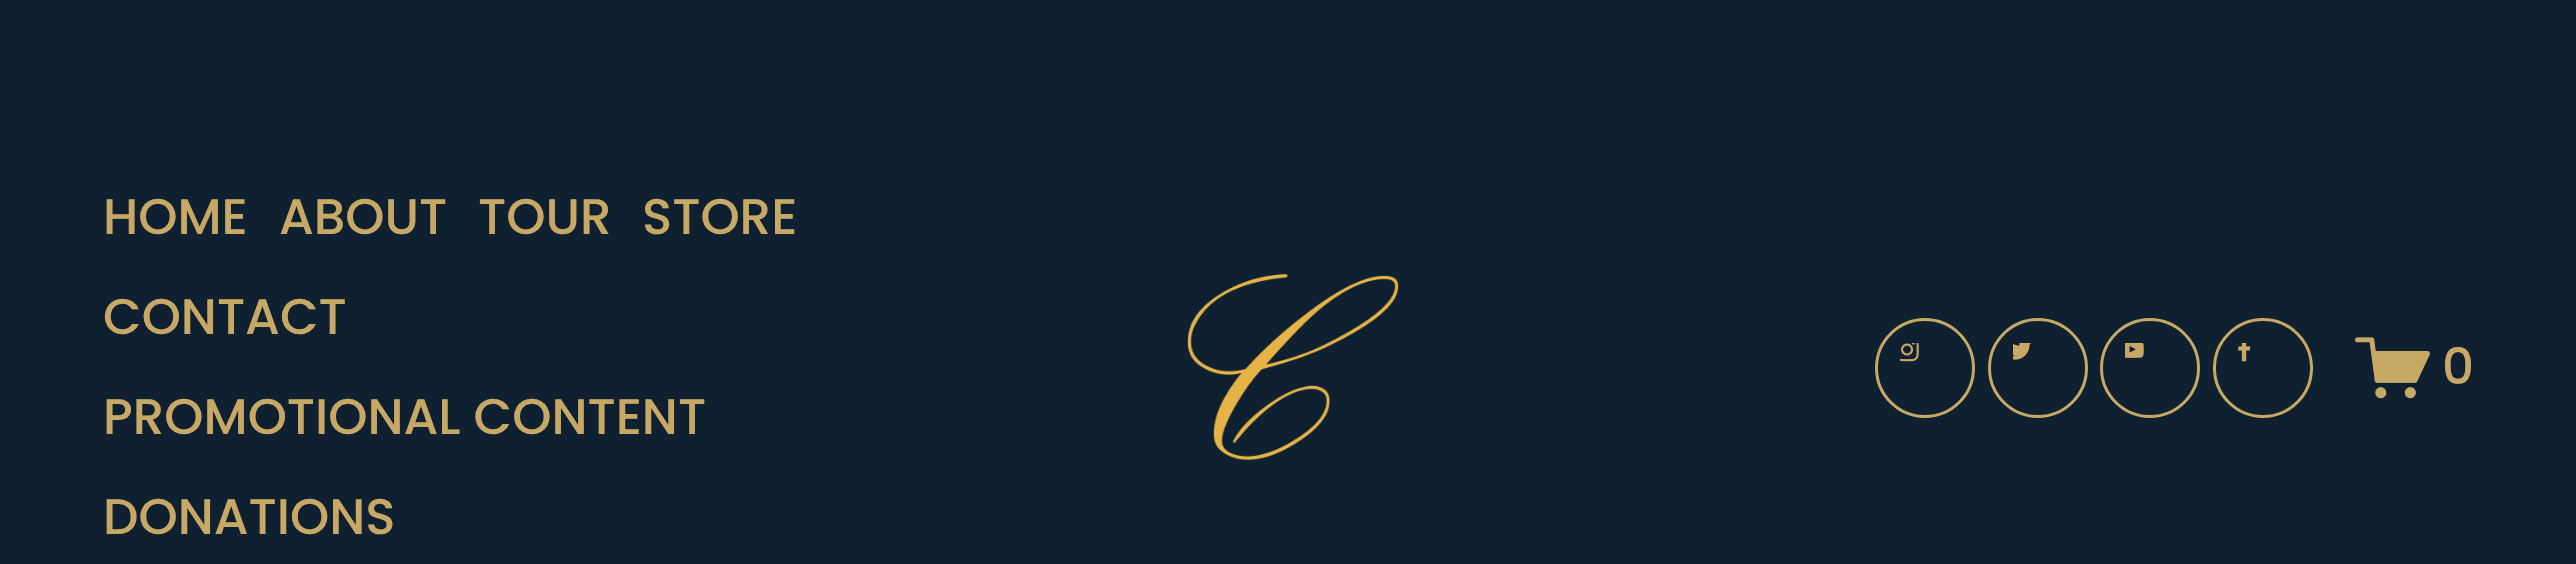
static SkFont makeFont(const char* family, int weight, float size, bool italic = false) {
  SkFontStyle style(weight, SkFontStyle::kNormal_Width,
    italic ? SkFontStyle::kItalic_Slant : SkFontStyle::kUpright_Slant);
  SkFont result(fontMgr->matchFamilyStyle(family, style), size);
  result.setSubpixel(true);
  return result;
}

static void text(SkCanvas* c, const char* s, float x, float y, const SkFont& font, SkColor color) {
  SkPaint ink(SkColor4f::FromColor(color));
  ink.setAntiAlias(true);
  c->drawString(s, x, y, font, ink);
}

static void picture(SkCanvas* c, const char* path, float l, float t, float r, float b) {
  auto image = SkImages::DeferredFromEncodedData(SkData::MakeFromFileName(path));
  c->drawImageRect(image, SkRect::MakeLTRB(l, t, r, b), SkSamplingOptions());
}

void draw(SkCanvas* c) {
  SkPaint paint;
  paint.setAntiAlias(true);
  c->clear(0xff0f2131);
  SkFont face1 = makeFont("Poppins", 500, 50);
  text(c, "HOME", 103, 234, face1, 0xffc8a865);
  text(c, "ABOUT", 279, 234, face1, 0xffc8a865);
  text(c, "TOUR", 478, 234, face1, 0xffc8a865);
  text(c, "STORE", 642, 234, face1, 0xffc8a865);
  text(c, "CONTACT", 103, 334, face1, 0xffc8a865);
  text(c, "PROMOTIONAL CONTENT", 103, 434, face1, 0xffc8a865);
  text(c, "DONATIONS", 103, 534, face1, 0xffc8a865);
  picture(c, "img_01.png", 1187, 274, 1399, 461);
  paint.setStyle(SkPaint::kStroke_Style);
  paint.setStrokeWidth(3);
  paint.setColor(0xffc8a865);
  c->drawCircle(1925, 368, 48.5f, paint);
  picture(c, "img_02.png", 1900, 343, 1919, 362);
  c->drawCircle(2038, 368, 48.5f, paint);
  picture(c, "img_03.png", 2013, 343, 2031, 360);
  c->drawCircle(2150, 368, 48.5f, paint);
  picture(c, "img_04.png", 2125, 343, 2144, 358);
  c->drawCircle(2263, 368, 48.5f, paint);
  picture(c, "img_05.png", 2238, 343, 2251, 362);
  picture(c, "img_06.png", 2355, 337, 2430, 399);
  text(c, "0", 2442, 384, face1, 0xffc8a865);
}
